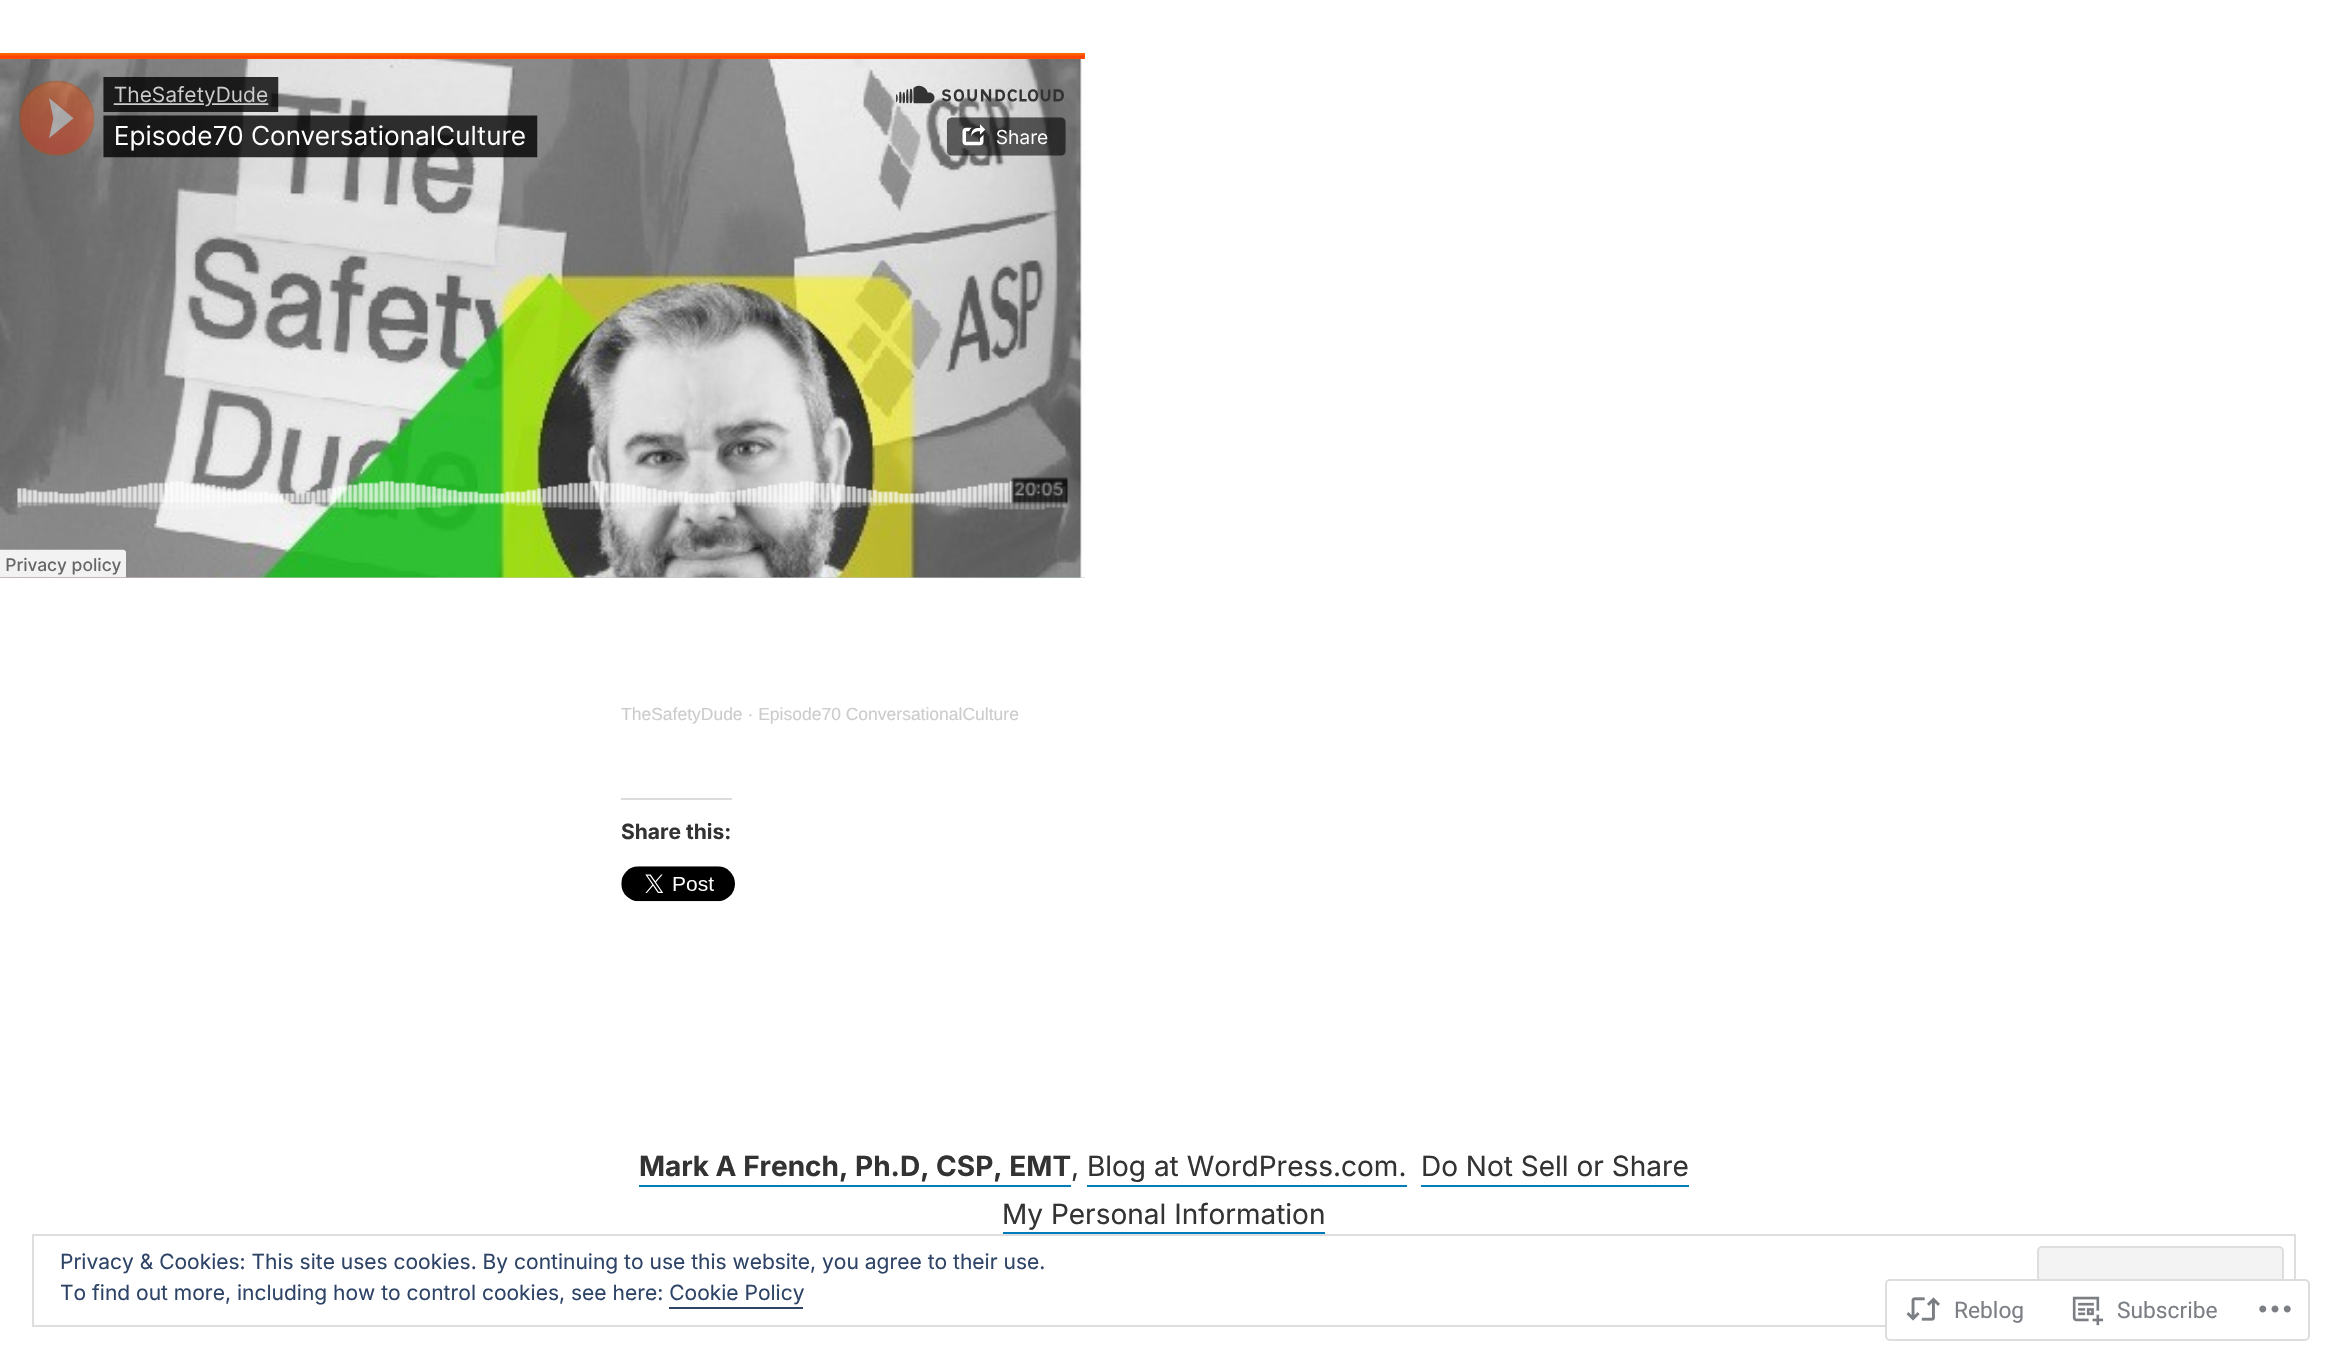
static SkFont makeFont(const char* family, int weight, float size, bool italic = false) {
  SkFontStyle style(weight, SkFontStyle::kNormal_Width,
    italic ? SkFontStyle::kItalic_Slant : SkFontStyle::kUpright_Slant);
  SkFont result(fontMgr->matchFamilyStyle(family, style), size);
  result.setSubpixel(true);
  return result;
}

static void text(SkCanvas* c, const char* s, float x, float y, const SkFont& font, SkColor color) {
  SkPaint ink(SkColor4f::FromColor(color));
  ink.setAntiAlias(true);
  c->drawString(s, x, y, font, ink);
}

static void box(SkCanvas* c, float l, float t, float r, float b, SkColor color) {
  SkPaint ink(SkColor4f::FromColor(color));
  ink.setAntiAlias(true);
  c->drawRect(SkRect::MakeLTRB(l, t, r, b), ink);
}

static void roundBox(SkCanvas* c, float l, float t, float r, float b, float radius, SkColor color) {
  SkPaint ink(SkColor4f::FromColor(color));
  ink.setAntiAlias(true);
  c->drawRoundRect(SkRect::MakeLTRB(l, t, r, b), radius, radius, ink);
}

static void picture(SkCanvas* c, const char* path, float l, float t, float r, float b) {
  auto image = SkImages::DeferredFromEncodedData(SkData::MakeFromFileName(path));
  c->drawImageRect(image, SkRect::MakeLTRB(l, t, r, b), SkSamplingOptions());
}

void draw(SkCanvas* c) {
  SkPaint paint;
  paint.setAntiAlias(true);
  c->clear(0xffffffff);
  picture(c, "img_01.png", 0, 52, 1085, 578);
  SkFont face1 = makeFont("Liberation Sans", 400, 17.5f);
  text(c, "TheSafetyDude · Episode70 ConversationalCulture", 621, 720, face1, 0xffcccccc);
  box(c, 621, 798, 732, 800, 0xffdcdcde);
  SkFont face2 = makeFont("Inter", 700, 21);
  text(c, "Share this:", 621, 839, face2, 0xff333333);
  picture(c, "img_02.png", 621, 866, 735, 902);
  SkFont face3 = makeFont("Inter", 700, 28);
  text(c, "Mark A French, Ph.D, CSP, EMT", 639, 1176, face3, 0xff333333);
  box(c, 639, 1185, 1071, 1187, 0xff007cba);
  SkFont face4 = makeFont("Inter", 400, 28);
  text(c, ", Blog at WordPress.com.", 1071, 1176, face4, 0xff333333);
  text(c, "Do Not Sell or Share", 1421, 1176, face4, 0xff333333);
  box(c, 1421, 1185, 1689, 1187, 0xff007cba);
  box(c, 1087, 1185, 1407, 1187, 0xff007cba);
  text(c, "My Personal Information", 1002, 1224, face4, 0xff333333);
  box(c, 1003, 1232, 1325, 1234, 0xff007cba);
  paint.setStyle(SkPaint::kStroke_Style);
  paint.setStrokeWidth(2);
  paint.setColor(0xffdedede);
  c->drawRect(SkRect::MakeLTRB(33, 1235, 2295, 1326), paint);
  SkFont face5 = makeFont("Inter", 400, 21);
  text(c, "Privacy & Cookies: This site uses cookies. By continuing to use this website, you agree to their use.", 60, 1269, face5, 0xff2e4467);
  paint.setStyle(SkPaint::kFill_Style);
  paint.setColor(0xfff3f3f3);
  c->drawRoundRect(SkRect::MakeLTRB(2038, 1247, 2283, 1313), 4, 4, paint);
  paint.setStyle(SkPaint::kStroke_Style);
  paint.setColor(0xffdedede);
  c->drawRoundRect(SkRect::MakeLTRB(2038, 1247, 2283, 1313), 4, 4, paint);
  text(c, "To find out more, including how to control cookies, see here: Cookie Policy", 60, 1300, face5, 0xff2e4467);
  box(c, 669, 1307, 803, 1309, 0xff2e4467);
  roundBox(c, 1885, 1279, 2310, 1341, 5, 0xfaffffff);
  paint.setColor(0xfadcdcde);
  c->drawRoundRect(SkRect::MakeLTRB(1886, 1280, 2309, 1340), 4, 4, paint);
  picture(c, "img_03.png", 1906, 1297, 1940, 1321);
  SkFont face6 = makeFont("Roboto", 400, 22.75f);
  text(c, "Reblog", 1954, 1318, face6, 0xff7b7f85);
  picture(c, "img_04.png", 2072, 1296, 2104, 1326);
  text(c, "Subscribe", 2117, 1318, face6, 0xff7b7f85);
  picture(c, "img_05.png", 2259, 1305, 2291, 1313);
}
